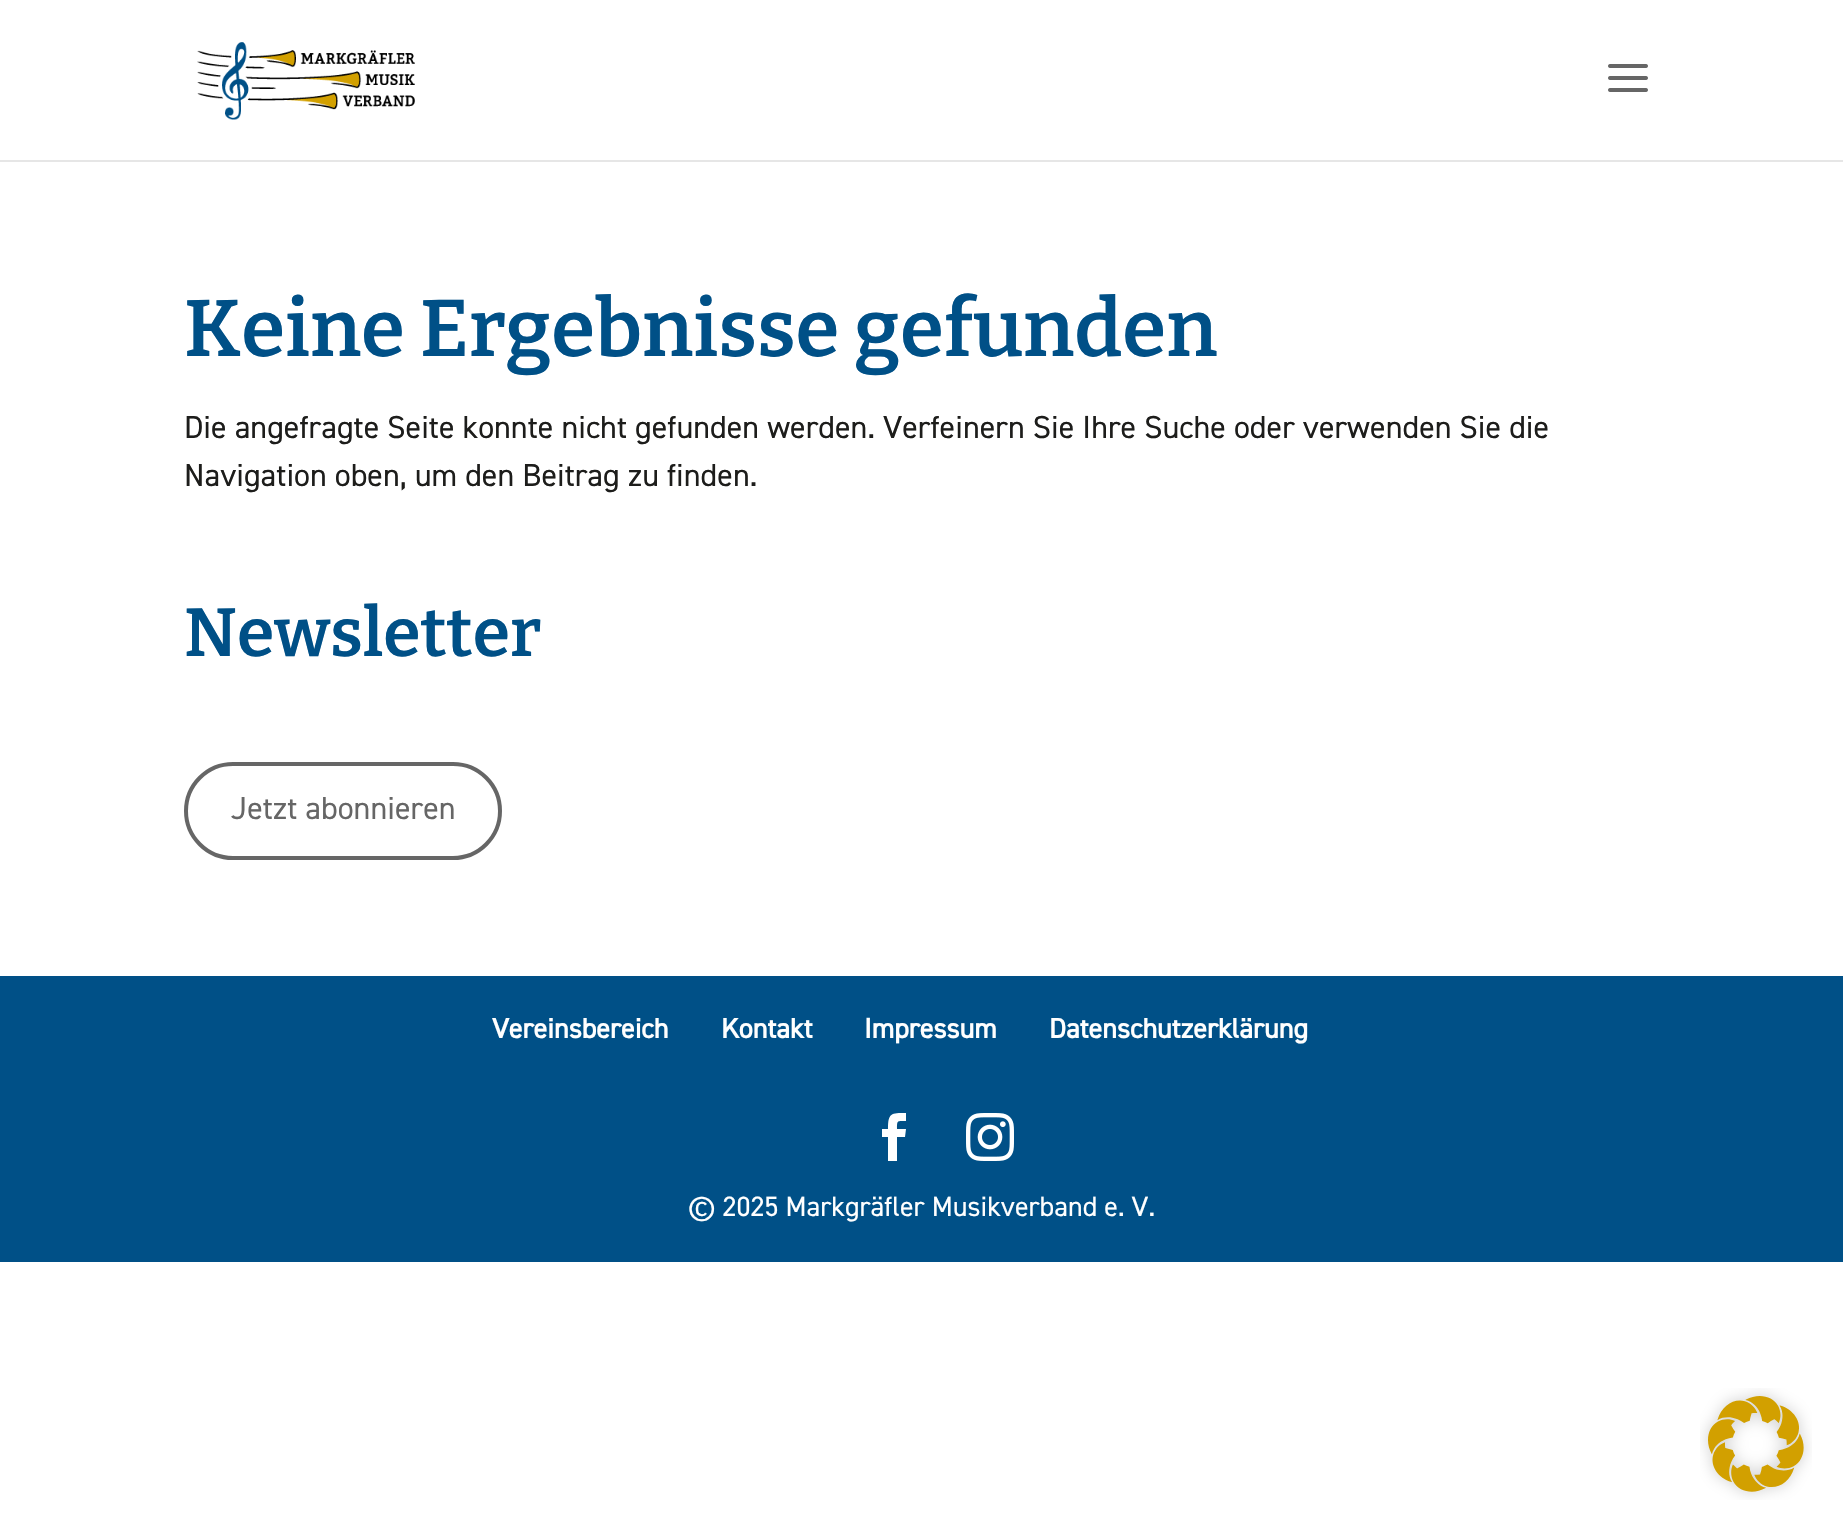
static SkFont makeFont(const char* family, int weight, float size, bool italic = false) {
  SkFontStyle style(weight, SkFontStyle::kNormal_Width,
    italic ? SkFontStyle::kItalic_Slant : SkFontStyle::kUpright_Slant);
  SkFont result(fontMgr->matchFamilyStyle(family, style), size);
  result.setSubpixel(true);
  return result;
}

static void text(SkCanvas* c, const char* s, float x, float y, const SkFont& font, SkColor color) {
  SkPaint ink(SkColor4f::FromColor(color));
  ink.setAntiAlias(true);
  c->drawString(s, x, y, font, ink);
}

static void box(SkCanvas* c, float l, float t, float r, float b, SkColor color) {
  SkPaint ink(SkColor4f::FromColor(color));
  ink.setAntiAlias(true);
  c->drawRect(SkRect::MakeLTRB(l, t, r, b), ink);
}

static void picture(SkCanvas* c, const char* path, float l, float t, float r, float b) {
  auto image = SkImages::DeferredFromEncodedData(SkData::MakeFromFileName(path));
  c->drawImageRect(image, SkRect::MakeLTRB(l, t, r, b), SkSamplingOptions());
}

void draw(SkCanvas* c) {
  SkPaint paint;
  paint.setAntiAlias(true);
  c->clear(0xffffffff);
  box(c, 0, 160, 1843, 162, 0xffe6e6e6);
  picture(c, "img_01.png", 197, 42, 415, 120);
  picture(c, "img_02.png", 1608, 64, 1648, 92);
  SkFont face1 = makeFont("Bitter", 600, 80);
  text(c, "Keine Ergebnisse gefunden", 184, 356, face1, 0xff005087);
  SkFont face2 = makeFont("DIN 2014", 400, 32);
  text(c, "Die angefragte Seite konnte nicht gefunden werden. Verfeinern Sie Ihre Suche oder verwenden Sie die", 184, 438, face2, 0xff1d1d1b);
  text(c, "Navigation oben, um den Beitrag zu finden.", 184, 486, face2, 0xff1d1d1b);
  SkFont face3 = makeFont("Bitter", 600, 68);
  text(c, "Newsletter", 184, 656, face3, 0xff005087);
  paint.setStyle(SkPaint::kStroke_Style);
  paint.setStrokeWidth(4);
  paint.setColor(0xff666666);
  c->drawRoundRect(SkRect::MakeLTRB(186, 764, 500, 858), 47, 47, paint);
  text(c, "Jetzt abonnieren", 231, 819, face2, 0xff666666);
  box(c, 0, 976, 1843, 1262, 0xff005087);
  SkFont face4 = makeFont("DIN 2014", 700, 28);
  text(c, "Vereinsbereich", 492, 1038, face4, 0xffffffff);
  text(c, "Kontakt", 721, 1038, face4, 0xffffffff);
  text(c, "Impressum", 864, 1038, face4, 0xffffffff);
  text(c, "Datenschutzerklärung", 1049, 1038, face4, 0xffffffff);
  paint.setStyle(SkPaint::kFill_Style);
  paint.setColor(0xffffffff);
  c->drawPath(SkPathBuilder().moveTo(888, 1161).lineTo(897, 1161).lineTo(897, 1137).lineTo(905, 1137).lineTo(906, 1129).lineTo(897, 1129).cubicTo(897, 1120, 897, 1121, 906, 1121).lineTo(906, 1113).cubicTo(891, 1113, 888, 1113, 888, 1129).lineTo(882, 1129).lineTo(882, 1137).lineTo(888, 1137).close().detach(), paint);
  picture(c, "img_03.png", 966, 1113, 1014, 1161);
  SkFont face5 = makeFont("DIN 2014", 400, 28);
  text(c, "© 2025 Markgräfler Musikverband e. V.", 688, 1216, face5, 0xffffffff);
  picture(c, "img_04.png", 1700, 1388, 1812, 1500);
}
